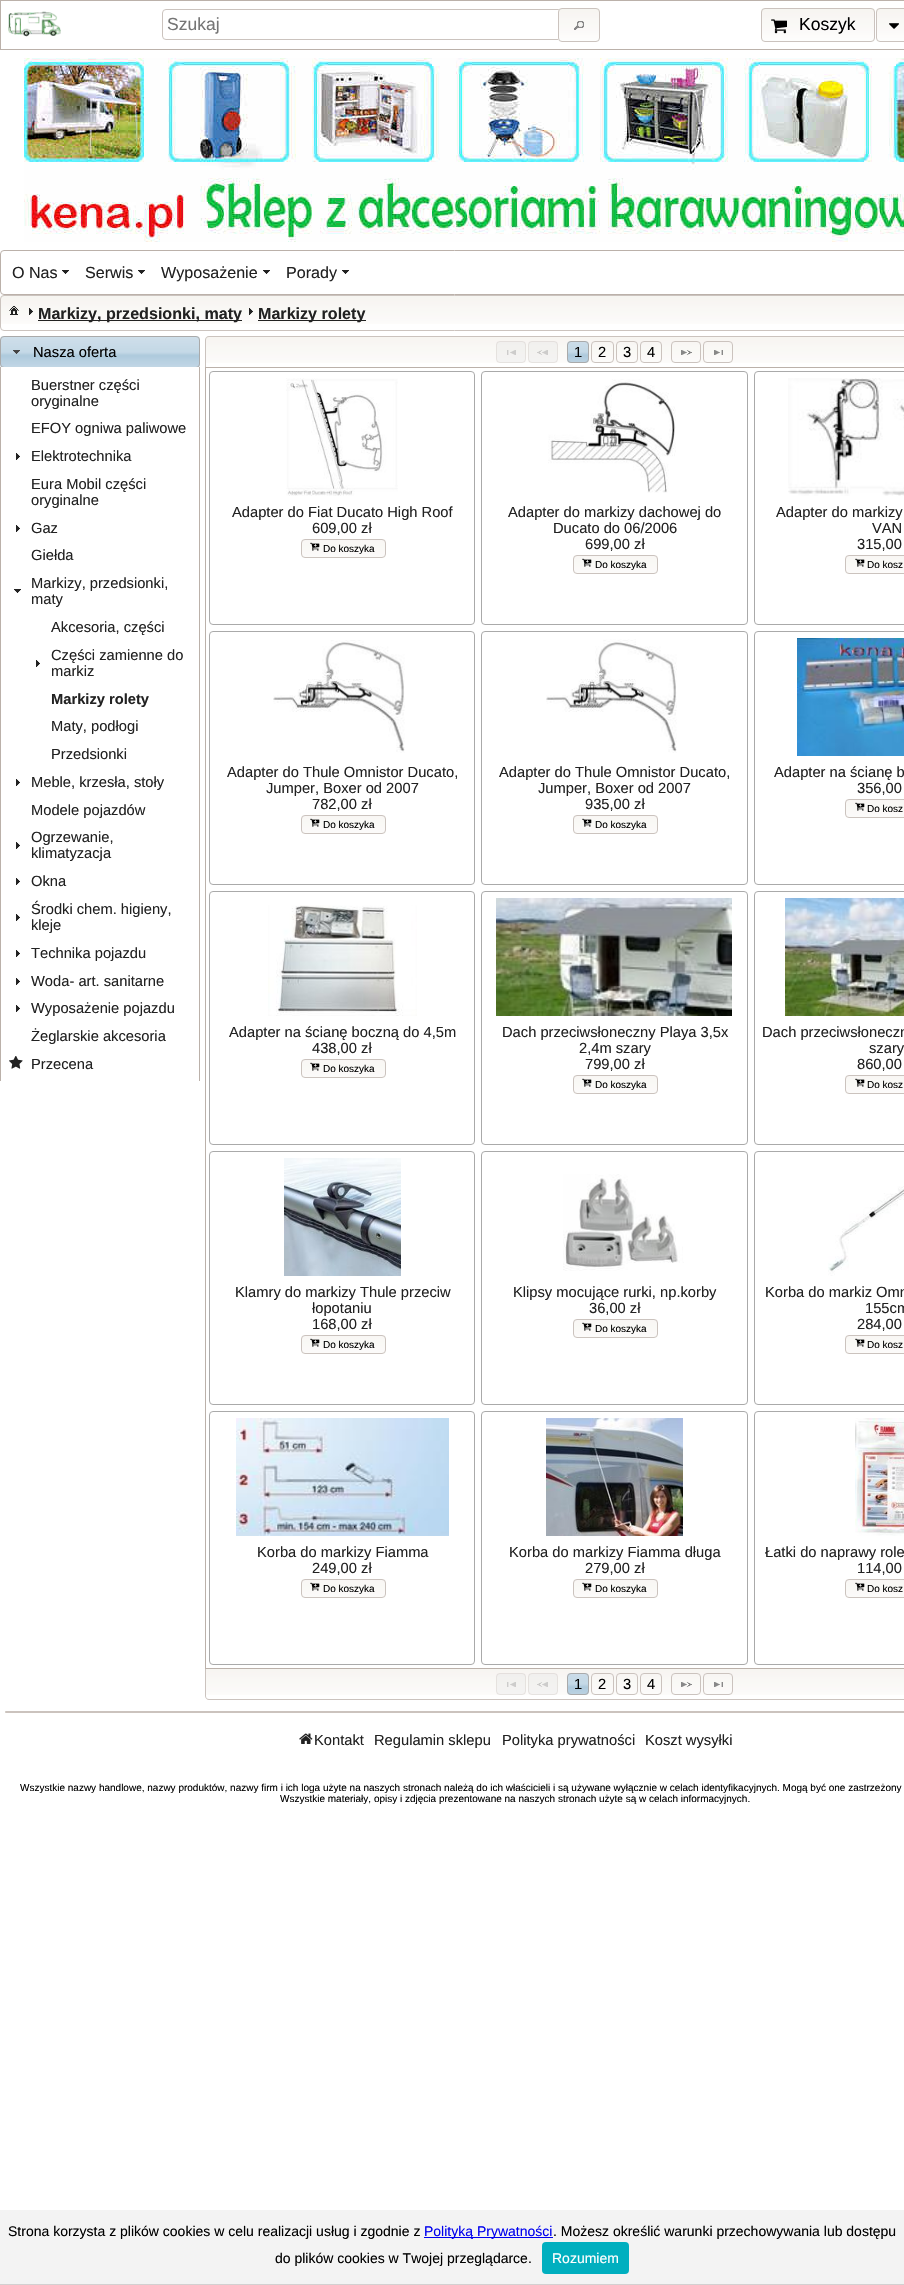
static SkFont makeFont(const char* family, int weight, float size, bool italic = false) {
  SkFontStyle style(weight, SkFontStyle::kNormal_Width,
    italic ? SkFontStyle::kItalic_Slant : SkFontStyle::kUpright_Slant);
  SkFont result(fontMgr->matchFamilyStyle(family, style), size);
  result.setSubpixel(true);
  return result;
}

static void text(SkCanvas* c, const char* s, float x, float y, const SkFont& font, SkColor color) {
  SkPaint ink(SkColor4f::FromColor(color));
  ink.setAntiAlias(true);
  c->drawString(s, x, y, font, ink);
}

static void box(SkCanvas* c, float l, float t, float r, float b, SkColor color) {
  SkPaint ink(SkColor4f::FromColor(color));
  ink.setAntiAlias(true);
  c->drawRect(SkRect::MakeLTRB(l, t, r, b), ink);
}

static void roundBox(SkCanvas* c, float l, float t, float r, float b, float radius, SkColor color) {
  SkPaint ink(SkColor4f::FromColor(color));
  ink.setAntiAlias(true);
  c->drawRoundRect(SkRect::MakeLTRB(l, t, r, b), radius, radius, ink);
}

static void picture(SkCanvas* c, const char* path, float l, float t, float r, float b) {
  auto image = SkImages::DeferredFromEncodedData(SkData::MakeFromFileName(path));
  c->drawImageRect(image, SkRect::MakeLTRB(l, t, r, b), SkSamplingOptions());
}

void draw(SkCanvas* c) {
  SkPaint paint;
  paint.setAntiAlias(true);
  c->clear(0xffffffff);
  paint.setStyle(SkPaint::kStroke_Style);
  paint.setStrokeWidth(1);
  paint.setColor(0xffbbb1aa);
  c->drawRect(SkRect::MakeLTRB(0.5f, 0.5f, 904.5f, 49.5f), paint);
  picture(c, "img_01.png", 8, 11, 61, 37);
  paint.setColor(0xffcbc3be);
  c->drawRoundRect(SkRect::MakeLTRB(162.5f, 9.5f, 563.5f, 39.5f), 3.5f, 3.5f, paint);
  SkFont face1 = makeFont("Liberation Sans", 400, 17.5f);
  text(c, "Szukaj", 167, 30, face1, 0xff757575);
  picture(c, "img_02.png", 558, 8, 600, 42);
  c->drawRoundRect(SkRect::MakeLTRB(558.5f, 8.5f, 599.5f, 41.5f), 3.5f, 3.5f, paint);
  picture(c, "img_03.png", 574, 21, 584, 30);
  picture(c, "img_04.png", 761, 8, 875, 42);
  c->drawRoundRect(SkRect::MakeLTRB(761.5f, 8.5f, 874.5f, 41.5f), 3.5f, 3.5f, paint);
  picture(c, "img_05.png", 771, 19, 787, 34);
  text(c, "Koszyk", 799, 30, face1, 0xff000000);
  picture(c, "img_06.png", 876, 8, 904, 42);
  c->drawRoundRect(SkRect::MakeLTRB(876.5f, 8.5f, 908.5f, 41.5f), 3.5f, 3.5f, paint);
  picture(c, "img_07.png", 889, 23, 899, 29);
  picture(c, "img_08.png", 24, 58, 904, 242);
  paint.setColor(0xffbbb1aa);
  c->drawRoundRect(SkRect::MakeLTRB(0.5f, 250.5f, 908.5f, 294.5f), 3.5f, 3.5f, paint);
  SkFont face2 = makeFont("Liberation Sans", 400, 16.1f);
  text(c, "O Nas", 12, 278, face2, 0xff222222);
  picture(c, "img_09.png", 62, 270, 69, 274);
  text(c, "Serwis", 85, 278, face2, 0xff222222);
  picture(c, "img_09.png", 138, 270, 145, 274);
  text(c, "Wyposażenie", 161, 278, face2, 0xff222222);
  picture(c, "img_09.png", 263, 270, 270, 274);
  text(c, "Porady", 286, 278, face2, 0xff222222);
  picture(c, "img_09.png", 342, 270, 349, 274);
  picture(c, "img_10.png", 0, 295, 904, 324);
  paint.setColor(0xffcbc3be);
  c->drawRoundRect(SkRect::MakeLTRB(0.5f, 295.5f, 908.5f, 330.5f), 3.5f, 3.5f, paint);
  picture(c, "img_11.png", 9, 306, 19, 315);
  picture(c, "img_12.png", 29, 308, 33, 315);
  box(c, 38, 320, 242, 321, 0xff222222);
  SkFont face3 = makeFont("Liberation Sans", 700, 16.1f);
  text(c, "Markizy, przedsionki, maty", 38, 319, face3, 0xff222222);
  picture(c, "img_12.png", 249, 308, 253, 315);
  box(c, 258, 320, 366, 321, 0xff222222);
  text(c, "Markizy rolety", 258, 319, face3, 0xff222222);
  picture(c, "img_13.png", 0, 336, 200, 367);
  paint.setColor(0xffaaaaaa);
  c->drawRoundRect(SkRect::MakeLTRB(0.5f, 336.5f, 199.5f, 367.5f), 3.5f, 3.5f, paint);
  picture(c, "img_14.png", 13, 350, 20, 354);
  SkFont face4 = makeFont("Liberation Sans", 400, 14.7f);
  text(c, "Nasza oferta", 33, 357, face4, 0xff000000);
  box(c, 1, 367, 199, 368, 0xffffffff);
  box(c, 199, 367, 200, 1081, 0xffbbb1aa);
  box(c, 0, 367, 1, 1081, 0xffbbb1aa);
  text(c, "Buerstner części", 31, 390, face4, 0xff222222);
  text(c, "oryginalne", 31, 406, face4, 0xff222222);
  text(c, "EFOY ogniwa paliwowe", 31, 433, face4, 0xff222222);
  picture(c, "img_15.png", 16, 453, 20, 460);
  text(c, "Elektrotechnika", 31, 461, face4, 0xff222222);
  text(c, "Eura Mobil części", 31, 489, face4, 0xff222222);
  text(c, "oryginalne", 31, 505, face4, 0xff222222);
  picture(c, "img_15.png", 16, 525, 20, 532);
  text(c, "Gaz", 31, 533, face4, 0xff222222);
  text(c, "Giełda", 31, 560, face4, 0xff222222);
  picture(c, "img_09.png", 14, 589, 21, 593);
  text(c, "Markizy, przedsionki,", 31, 588, face4, 0xff222222);
  text(c, "maty", 31, 604, face4, 0xff222222);
  text(c, "Akcesoria, części", 51, 632, face4, 0xff222222);
  picture(c, "img_15.png", 36, 660, 40, 667);
  text(c, "Części zamienne do", 51, 660, face4, 0xff222222);
  text(c, "markiz", 51, 676, face4, 0xff222222);
  SkFont face5 = makeFont("Liberation Sans", 700, 14.7f);
  text(c, "Markizy rolety", 51, 704, face5, 0xff222222);
  text(c, "Maty, podłogi", 51, 731, face4, 0xff222222);
  text(c, "Przedsionki", 51, 759, face4, 0xff222222);
  picture(c, "img_15.png", 16, 779, 20, 786);
  text(c, "Meble, krzesła, stoły", 31, 787, face4, 0xff222222);
  text(c, "Modele pojazdów", 31, 815, face4, 0xff222222);
  picture(c, "img_15.png", 16, 842, 20, 849);
  text(c, "Ogrzewanie,", 31, 842, face4, 0xff222222);
  text(c, "klimatyzacja", 31, 858, face4, 0xff222222);
  picture(c, "img_15.png", 16, 878, 20, 885);
  text(c, "Okna", 31, 886, face4, 0xff222222);
  picture(c, "img_15.png", 16, 914, 20, 921);
  text(c, "Środki chem. higieny,", 31, 914, face4, 0xff222222);
  text(c, "kleje", 31, 930, face4, 0xff222222);
  picture(c, "img_15.png", 16, 950, 20, 957);
  text(c, "Technika pojazdu", 31, 958, face4, 0xff222222);
  picture(c, "img_15.png", 16, 978, 20, 985);
  text(c, "Woda- art. sanitarne", 31, 986, face4, 0xff222222);
  picture(c, "img_15.png", 16, 1005, 20, 1012);
  text(c, "Wyposażenie pojazdu", 31, 1013, face4, 0xff222222);
  text(c, "Żeglarskie akcesoria", 31, 1041, face4, 0xff222222);
  picture(c, "img_16.png", 9, 1056, 23, 1069);
  text(c, "Przecena", 31, 1069, face4, 0xff222222);
  picture(c, "img_17.png", 205, 336, 904, 363);
  paint.setStyle(SkPaint::kFill_Style);
  paint.setColor(0xffcbc3be);
  c->drawPath(SkPathBuilder(SkPathFillType::kEvenOdd).moveTo(209, 336).lineTo(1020, 336).cubicTo(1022, 336, 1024, 338, 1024, 340).lineTo(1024, 367).lineTo(205, 367).lineTo(205, 340).cubicTo(205, 338, 207, 336, 209, 336).close().moveTo(209, 337).lineTo(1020, 337).cubicTo(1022, 337, 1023, 338, 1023, 340).lineTo(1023, 367).lineTo(206, 367).lineTo(206, 340).cubicTo(206, 338, 207, 337, 209, 337).close().detach(), paint);
  roundBox(c, 496, 341, 526, 363, 4, 0x59e6e6e6);
  paint.setStyle(SkPaint::kStroke_Style);
  paint.setColor(0x59cbc3be);
  c->drawRoundRect(SkRect::MakeLTRB(496.5f, 341.5f, 525.5f, 362.5f), 3.5f, 3.5f, paint);
  picture(c, "img_18.png", 507, 350, 516, 355);
  roundBox(c, 528, 341, 558, 363, 4, 0x59e6e6e6);
  c->drawRoundRect(SkRect::MakeLTRB(528.5f, 341.5f, 557.5f, 362.5f), 3.5f, 3.5f, paint);
  picture(c, "img_19.png", 537, 350, 548, 355);
  picture(c, "img_20.png", 567, 341, 589, 363);
  paint.setColor(0xffaaaaaa);
  c->drawRoundRect(SkRect::MakeLTRB(567.5f, 341.5f, 588.5f, 362.5f), 3.5f, 3.5f, paint);
  text(c, "1", 574, 357, face4, 0xff000000);
  picture(c, "img_21.png", 591, 341, 614, 363);
  paint.setColor(0xffcbc3be);
  c->drawRoundRect(SkRect::MakeLTRB(591.5f, 341.5f, 613.5f, 362.5f), 3.5f, 3.5f, paint);
  text(c, "2", 598, 357, face4, 0xff000000);
  picture(c, "img_22.png", 616, 341, 638, 363);
  c->drawRoundRect(SkRect::MakeLTRB(616.5f, 341.5f, 637.5f, 362.5f), 3.5f, 3.5f, paint);
  text(c, "3", 623, 357, face4, 0xff000000);
  picture(c, "img_22.png", 640, 341, 662, 363);
  c->drawRoundRect(SkRect::MakeLTRB(640.5f, 341.5f, 661.5f, 362.5f), 3.5f, 3.5f, paint);
  text(c, "4", 647, 357, face4, 0xff000000);
  picture(c, "img_23.png", 671, 341, 701, 363);
  c->drawRoundRect(SkRect::MakeLTRB(671.5f, 341.5f, 700.5f, 362.5f), 3.5f, 3.5f, paint);
  picture(c, "img_24.png", 681, 350, 692, 355);
  picture(c, "img_23.png", 703, 341, 733, 363);
  c->drawRoundRect(SkRect::MakeLTRB(703.5f, 341.5f, 732.5f, 362.5f), 3.5f, 3.5f, paint);
  picture(c, "img_25.png", 714, 350, 723, 355);
  paint.setColor(0xffbbb1aa);
  c->drawRect(SkRect::MakeLTRB(205.5f, 367.5f, 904.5f, 1668.5f), paint);
  paint.setColor(0xffaaaaaa);
  c->drawRoundRect(SkRect::MakeLTRB(209.5f, 371.5f, 474.5f, 624.5f), 3.5f, 3.5f, paint);
  picture(c, "img_26.png", 286, 378, 398, 496);
  text(c, "Adapter do Fiat Ducato High Roof", 232, 517, face4, 0xff222222);
  text(c, "609,00 zł", 312, 533, face4, 0xff222222);
  picture(c, "img_27.png", 301, 539, 386, 558);
  paint.setColor(0xffcbc3be);
  c->drawRoundRect(SkRect::MakeLTRB(301.5f, 539.5f, 385.5f, 557.5f), 3.5f, 3.5f, paint);
  picture(c, "img_28.png", 310, 542, 320, 551);
  SkFont face6 = makeFont("Liberation Sans", 400, 10);
  text(c, "Do koszyka", 323, 552, face6, 0xff000000);
  paint.setColor(0xffaaaaaa);
  c->drawRoundRect(SkRect::MakeLTRB(481.5f, 371.5f, 747.5f, 624.5f), 3.5f, 3.5f, paint);
  picture(c, "img_29.png", 548, 379, 676, 493);
  text(c, "Adapter do markizy dachowej do", 508, 517, face4, 0xff222222);
  text(c, "Ducato do 06/2006", 553, 533, face4, 0xff222222);
  text(c, "699,00 zł", 585, 549, face4, 0xff222222);
  picture(c, "img_27.png", 573, 555, 658, 574);
  paint.setColor(0xffcbc3be);
  c->drawRoundRect(SkRect::MakeLTRB(573.5f, 555.5f, 657.5f, 573.5f), 3.5f, 3.5f, paint);
  picture(c, "img_28.png", 582, 558, 592, 567);
  text(c, "Do koszyka", 595, 568, face6, 0xff000000);
  paint.setColor(0xffaaaaaa);
  c->drawRoundRect(SkRect::MakeLTRB(754.5f, 371.5f, 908.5f, 624.5f), 3.5f, 3.5f, paint);
  picture(c, "img_30.png", 788, 378, 904, 496);
  text(c, "Adapter do markizy", 776, 517, face4, 0xff222222);
  text(c, "VAN", 872, 533, face4, 0xff222222);
  text(c, "315,00", 857, 549, face4, 0xff222222);
  picture(c, "img_31.png", 845, 555, 904, 574);
  paint.setColor(0xffcbc3be);
  c->drawRoundRect(SkRect::MakeLTRB(845.5f, 555.5f, 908.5f, 573.5f), 3.5f, 3.5f, paint);
  picture(c, "img_28.png", 855, 558, 865, 567);
  text(c, "Do kosz", 867, 568, face6, 0xff000000);
  paint.setColor(0xffaaaaaa);
  c->drawRoundRect(SkRect::MakeLTRB(209.5f, 631.5f, 474.5f, 884.5f), 3.5f, 3.5f, paint);
  picture(c, "img_32.png", 273, 640, 405, 753);
  text(c, "Adapter do Thule Omnistor Ducato,", 227, 777, face4, 0xff222222);
  text(c, "Jumper, Boxer od 2007", 266, 793, face4, 0xff222222);
  text(c, "782,00 zł", 312, 809, face4, 0xff222222);
  picture(c, "img_27.png", 301, 815, 386, 834);
  paint.setColor(0xffcbc3be);
  c->drawRoundRect(SkRect::MakeLTRB(301.5f, 815.5f, 385.5f, 833.5f), 3.5f, 3.5f, paint);
  picture(c, "img_28.png", 310, 818, 320, 827);
  text(c, "Do koszyka", 323, 828, face6, 0xff000000);
  paint.setColor(0xffaaaaaa);
  c->drawRoundRect(SkRect::MakeLTRB(481.5f, 631.5f, 747.5f, 884.5f), 3.5f, 3.5f, paint);
  picture(c, "img_33.png", 546, 639, 677, 753);
  text(c, "Adapter do Thule Omnistor Ducato,", 499, 777, face4, 0xff222222);
  text(c, "Jumper, Boxer od 2007", 538, 793, face4, 0xff222222);
  text(c, "935,00 zł", 585, 809, face4, 0xff222222);
  picture(c, "img_27.png", 573, 815, 658, 834);
  paint.setColor(0xffcbc3be);
  c->drawRoundRect(SkRect::MakeLTRB(573.5f, 815.5f, 657.5f, 833.5f), 3.5f, 3.5f, paint);
  picture(c, "img_28.png", 582, 818, 592, 827);
  text(c, "Do koszyka", 595, 828, face6, 0xff000000);
  paint.setColor(0xffaaaaaa);
  c->drawRoundRect(SkRect::MakeLTRB(754.5f, 631.5f, 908.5f, 884.5f), 3.5f, 3.5f, paint);
  picture(c, "img_34.png", 797, 638, 904, 756);
  text(c, "Adapter na ścianę b", 774, 777, face4, 0xff222222);
  text(c, "356,00", 857, 793, face4, 0xff222222);
  picture(c, "img_31.png", 845, 799, 904, 818);
  paint.setColor(0xffcbc3be);
  c->drawRoundRect(SkRect::MakeLTRB(845.5f, 799.5f, 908.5f, 817.5f), 3.5f, 3.5f, paint);
  picture(c, "img_28.png", 855, 802, 865, 811);
  text(c, "Do kosz", 867, 812, face6, 0xff000000);
  paint.setColor(0xffaaaaaa);
  c->drawRoundRect(SkRect::MakeLTRB(209.5f, 891.5f, 474.5f, 1144.5f), 3.5f, 3.5f, paint);
  picture(c, "img_35.png", 268, 905, 417, 1016);
  text(c, "Adapter na ścianę boczną do 4,5m", 229, 1037, face4, 0xff222222);
  text(c, "438,00 zł", 312, 1053, face4, 0xff222222);
  picture(c, "img_27.png", 301, 1059, 386, 1078);
  paint.setColor(0xffcbc3be);
  c->drawRoundRect(SkRect::MakeLTRB(301.5f, 1059.5f, 385.5f, 1077.5f), 3.5f, 3.5f, paint);
  picture(c, "img_28.png", 310, 1062, 320, 1071);
  text(c, "Do koszyka", 323, 1072, face6, 0xff000000);
  paint.setColor(0xffaaaaaa);
  c->drawRoundRect(SkRect::MakeLTRB(481.5f, 891.5f, 747.5f, 1144.5f), 3.5f, 3.5f, paint);
  picture(c, "img_36.png", 496, 898, 732, 1016);
  text(c, "Dach przeciwsłoneczny Playa 3,5x", 502, 1037, face4, 0xff222222);
  text(c, "2,4m szary", 579, 1053, face4, 0xff222222);
  text(c, "799,00 zł", 585, 1069, face4, 0xff222222);
  picture(c, "img_27.png", 573, 1075, 658, 1094);
  paint.setColor(0xffcbc3be);
  c->drawRoundRect(SkRect::MakeLTRB(573.5f, 1075.5f, 657.5f, 1093.5f), 3.5f, 3.5f, paint);
  picture(c, "img_28.png", 582, 1078, 592, 1087);
  text(c, "Do koszyka", 595, 1088, face6, 0xff000000);
  paint.setColor(0xffaaaaaa);
  c->drawRoundRect(SkRect::MakeLTRB(754.5f, 891.5f, 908.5f, 1144.5f), 3.5f, 3.5f, paint);
  picture(c, "img_37.png", 785, 898, 904, 1016);
  text(c, "Dach przeciwsłoneczn", 762, 1037, face4, 0xff222222);
  text(c, "szary", 869, 1053, face4, 0xff222222);
  text(c, "860,00", 857, 1069, face4, 0xff222222);
  picture(c, "img_31.png", 845, 1075, 904, 1094);
  paint.setColor(0xffcbc3be);
  c->drawRoundRect(SkRect::MakeLTRB(845.5f, 1075.5f, 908.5f, 1093.5f), 3.5f, 3.5f, paint);
  picture(c, "img_28.png", 855, 1078, 865, 1087);
  text(c, "Do kosz", 867, 1088, face6, 0xff000000);
  paint.setColor(0xffaaaaaa);
  c->drawRoundRect(SkRect::MakeLTRB(209.5f, 1151.5f, 474.5f, 1404.5f), 3.5f, 3.5f, paint);
  picture(c, "img_38.png", 284, 1158, 401, 1276);
  text(c, "Klamry do markizy Thule przeciw", 235, 1297, face4, 0xff222222);
  text(c, "łopotaniu", 312, 1313, face4, 0xff222222);
  text(c, "168,00 zł", 312, 1329, face4, 0xff222222);
  picture(c, "img_27.png", 301, 1335, 386, 1354);
  paint.setColor(0xffcbc3be);
  c->drawRoundRect(SkRect::MakeLTRB(301.5f, 1335.5f, 385.5f, 1353.5f), 3.5f, 3.5f, paint);
  picture(c, "img_28.png", 310, 1338, 320, 1347);
  text(c, "Do koszyka", 323, 1348, face6, 0xff000000);
  paint.setColor(0xffaaaaaa);
  c->drawRoundRect(SkRect::MakeLTRB(481.5f, 1151.5f, 747.5f, 1404.5f), 3.5f, 3.5f, paint);
  picture(c, "img_39.png", 563, 1174, 684, 1271);
  text(c, "Klipsy mocujące rurki, np.korby", 513, 1297, face4, 0xff222222);
  text(c, "36,00 zł", 589, 1313, face4, 0xff222222);
  picture(c, "img_27.png", 573, 1319, 658, 1338);
  paint.setColor(0xffcbc3be);
  c->drawRoundRect(SkRect::MakeLTRB(573.5f, 1319.5f, 657.5f, 1337.5f), 3.5f, 3.5f, paint);
  picture(c, "img_28.png", 582, 1322, 592, 1331);
  text(c, "Do koszyka", 595, 1332, face6, 0xff000000);
  paint.setColor(0xffaaaaaa);
  c->drawRoundRect(SkRect::MakeLTRB(754.5f, 1151.5f, 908.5f, 1404.5f), 3.5f, 3.5f, paint);
  picture(c, "img_40.png", 828, 1186, 904, 1276);
  text(c, "Korba do markiz Omn", 765, 1297, face4, 0xff222222);
  text(c, "155cm", 865, 1313, face4, 0xff222222);
  text(c, "284,00", 857, 1329, face4, 0xff222222);
  picture(c, "img_31.png", 845, 1335, 904, 1354);
  paint.setColor(0xffcbc3be);
  c->drawRoundRect(SkRect::MakeLTRB(845.5f, 1335.5f, 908.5f, 1353.5f), 3.5f, 3.5f, paint);
  picture(c, "img_28.png", 855, 1338, 865, 1347);
  text(c, "Do kosz", 867, 1348, face6, 0xff000000);
  paint.setColor(0xffaaaaaa);
  c->drawRoundRect(SkRect::MakeLTRB(209.5f, 1411.5f, 474.5f, 1664.5f), 3.5f, 3.5f, paint);
  picture(c, "img_41.png", 236, 1418, 449, 1536);
  text(c, "Korba do markizy Fiamma", 257, 1557, face4, 0xff222222);
  text(c, "249,00 zł", 312, 1573, face4, 0xff222222);
  picture(c, "img_27.png", 301, 1579, 386, 1598);
  paint.setColor(0xffcbc3be);
  c->drawRoundRect(SkRect::MakeLTRB(301.5f, 1579.5f, 385.5f, 1597.5f), 3.5f, 3.5f, paint);
  picture(c, "img_28.png", 310, 1582, 320, 1591);
  text(c, "Do koszyka", 323, 1592, face6, 0xff000000);
  paint.setColor(0xffaaaaaa);
  c->drawRoundRect(SkRect::MakeLTRB(481.5f, 1411.5f, 747.5f, 1664.5f), 3.5f, 3.5f, paint);
  picture(c, "img_42.png", 546, 1418, 683, 1536);
  text(c, "Korba do markizy Fiamma długa", 509, 1557, face4, 0xff222222);
  text(c, "279,00 zł", 585, 1573, face4, 0xff222222);
  picture(c, "img_27.png", 573, 1579, 658, 1598);
  paint.setColor(0xffcbc3be);
  c->drawRoundRect(SkRect::MakeLTRB(573.5f, 1579.5f, 657.5f, 1597.5f), 3.5f, 3.5f, paint);
  picture(c, "img_28.png", 582, 1582, 592, 1591);
  text(c, "Do koszyka", 595, 1592, face6, 0xff000000);
  paint.setColor(0xffaaaaaa);
  c->drawRoundRect(SkRect::MakeLTRB(754.5f, 1411.5f, 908.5f, 1664.5f), 3.5f, 3.5f, paint);
  picture(c, "img_43.png", 855, 1418, 904, 1536);
  text(c, "Łatki do naprawy role", 765, 1557, face4, 0xff222222);
  text(c, "114,00", 857, 1573, face4, 0xff222222);
  picture(c, "img_31.png", 845, 1579, 904, 1598);
  paint.setColor(0xffcbc3be);
  c->drawRoundRect(SkRect::MakeLTRB(845.5f, 1579.5f, 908.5f, 1597.5f), 3.5f, 3.5f, paint);
  picture(c, "img_28.png", 855, 1582, 865, 1591);
  text(c, "Do kosz", 867, 1592, face6, 0xff000000);
  picture(c, "img_44.png", 206, 1669, 904, 1695);
  paint.setStyle(SkPaint::kFill_Style);
  c->drawPath(SkPathBuilder(SkPathFillType::kEvenOdd).moveTo(205, 1669).lineTo(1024, 1669).lineTo(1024, 1696).cubicTo(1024, 1698, 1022, 1700, 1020, 1700).lineTo(209, 1700).cubicTo(207, 1700, 205, 1698, 205, 1696).close().moveTo(206, 1669).lineTo(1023, 1669).lineTo(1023, 1696).cubicTo(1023, 1698, 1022, 1699, 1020, 1699).lineTo(209, 1699).cubicTo(207, 1699, 206, 1698, 206, 1696).close().detach(), paint);
  roundBox(c, 496, 1673, 526, 1695, 4, 0x59e6e6e6);
  paint.setStyle(SkPaint::kStroke_Style);
  paint.setColor(0x59cbc3be);
  c->drawRoundRect(SkRect::MakeLTRB(496.5f, 1673.5f, 525.5f, 1694.5f), 3.5f, 3.5f, paint);
  picture(c, "img_18.png", 507, 1682, 516, 1687);
  roundBox(c, 528, 1673, 558, 1695, 4, 0x59e6e6e6);
  c->drawRoundRect(SkRect::MakeLTRB(528.5f, 1673.5f, 557.5f, 1694.5f), 3.5f, 3.5f, paint);
  picture(c, "img_19.png", 537, 1682, 548, 1687);
  picture(c, "img_20.png", 567, 1673, 589, 1695);
  paint.setColor(0xffaaaaaa);
  c->drawRoundRect(SkRect::MakeLTRB(567.5f, 1673.5f, 588.5f, 1694.5f), 3.5f, 3.5f, paint);
  text(c, "1", 574, 1689, face4, 0xff000000);
  picture(c, "img_21.png", 591, 1673, 614, 1695);
  paint.setColor(0xffcbc3be);
  c->drawRoundRect(SkRect::MakeLTRB(591.5f, 1673.5f, 613.5f, 1694.5f), 3.5f, 3.5f, paint);
  text(c, "2", 598, 1689, face4, 0xff000000);
  picture(c, "img_22.png", 616, 1673, 638, 1695);
  c->drawRoundRect(SkRect::MakeLTRB(616.5f, 1673.5f, 637.5f, 1694.5f), 3.5f, 3.5f, paint);
  text(c, "3", 623, 1689, face4, 0xff000000);
  picture(c, "img_22.png", 640, 1673, 662, 1695);
  c->drawRoundRect(SkRect::MakeLTRB(640.5f, 1673.5f, 661.5f, 1694.5f), 3.5f, 3.5f, paint);
  text(c, "4", 647, 1689, face4, 0xff000000);
  picture(c, "img_23.png", 671, 1673, 701, 1695);
  c->drawRoundRect(SkRect::MakeLTRB(671.5f, 1673.5f, 700.5f, 1694.5f), 3.5f, 3.5f, paint);
  picture(c, "img_24.png", 681, 1682, 692, 1687);
  picture(c, "img_23.png", 703, 1673, 733, 1695);
  c->drawRoundRect(SkRect::MakeLTRB(703.5f, 1673.5f, 732.5f, 1694.5f), 3.5f, 3.5f, paint);
  picture(c, "img_25.png", 714, 1682, 723, 1687);
  picture(c, "img_45.png", 5, 1711, 6, 1713);
  roundBox(c, 5, 1711, 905, 1713, 1, 0xffcbc3be);
  picture(c, "img_46.png", 299, 1733, 313, 1744);
  text(c, "Kontakt", 314, 1745, face4, 0xff222222);
  text(c, "Regulamin sklepu", 374, 1745, face4, 0xff222222);
  text(c, "Polityka prywatności", 502, 1745, face4, 0xff222222);
  text(c, "Koszt wysyłki", 645, 1745, face4, 0xff222222);
  text(c, "Wszystkie nazwy handlowe, nazwy produktów, nazwy firm i ich loga użyte na naszych stronach należą do ich właścicieli i są używane wyłącznie w celach identyfikacyjnych. Mogą być one zastrzeżony", 20, 1791, face6, 0xff000000);
  text(c, "Wszystkie materiały, opisy i zdjęcia prezentowane na naszych stronach użyte są w celach informacyjnych.", 280, 1802, face6, 0xff000000);
  box(c, 0, 2210, 904, 2284, 0xfff3f3f3);
  box(c, 0, 2284, 904, 2285, 0xffd3d0d0);
  SkFont face7 = makeFont("Liberation Sans", 400, 14);
  text(c, "Strona korzysta z plików cookies w celu realizacji usług i zgodnie z", 8, 2236, face7, 0xff000000);
  box(c, 424, 2237, 553, 2238, 0xff0000ee);
  text(c, "Polityką Prywatności", 424, 2236, face7, 0xff0000ee);
  text(c, ". Możesz określić warunki przechowywania lub dostępu", 553, 2236, face7, 0xff000000);
  text(c, "do plików cookies w Twojej przeglądarce.", 275, 2263, face7, 0xff000000);
  roundBox(c, 542, 2242, 629, 2274, 4, 0xff00afbf);
  text(c, "Rozumiem", 552, 2263, face7, 0xffffffff);
}
